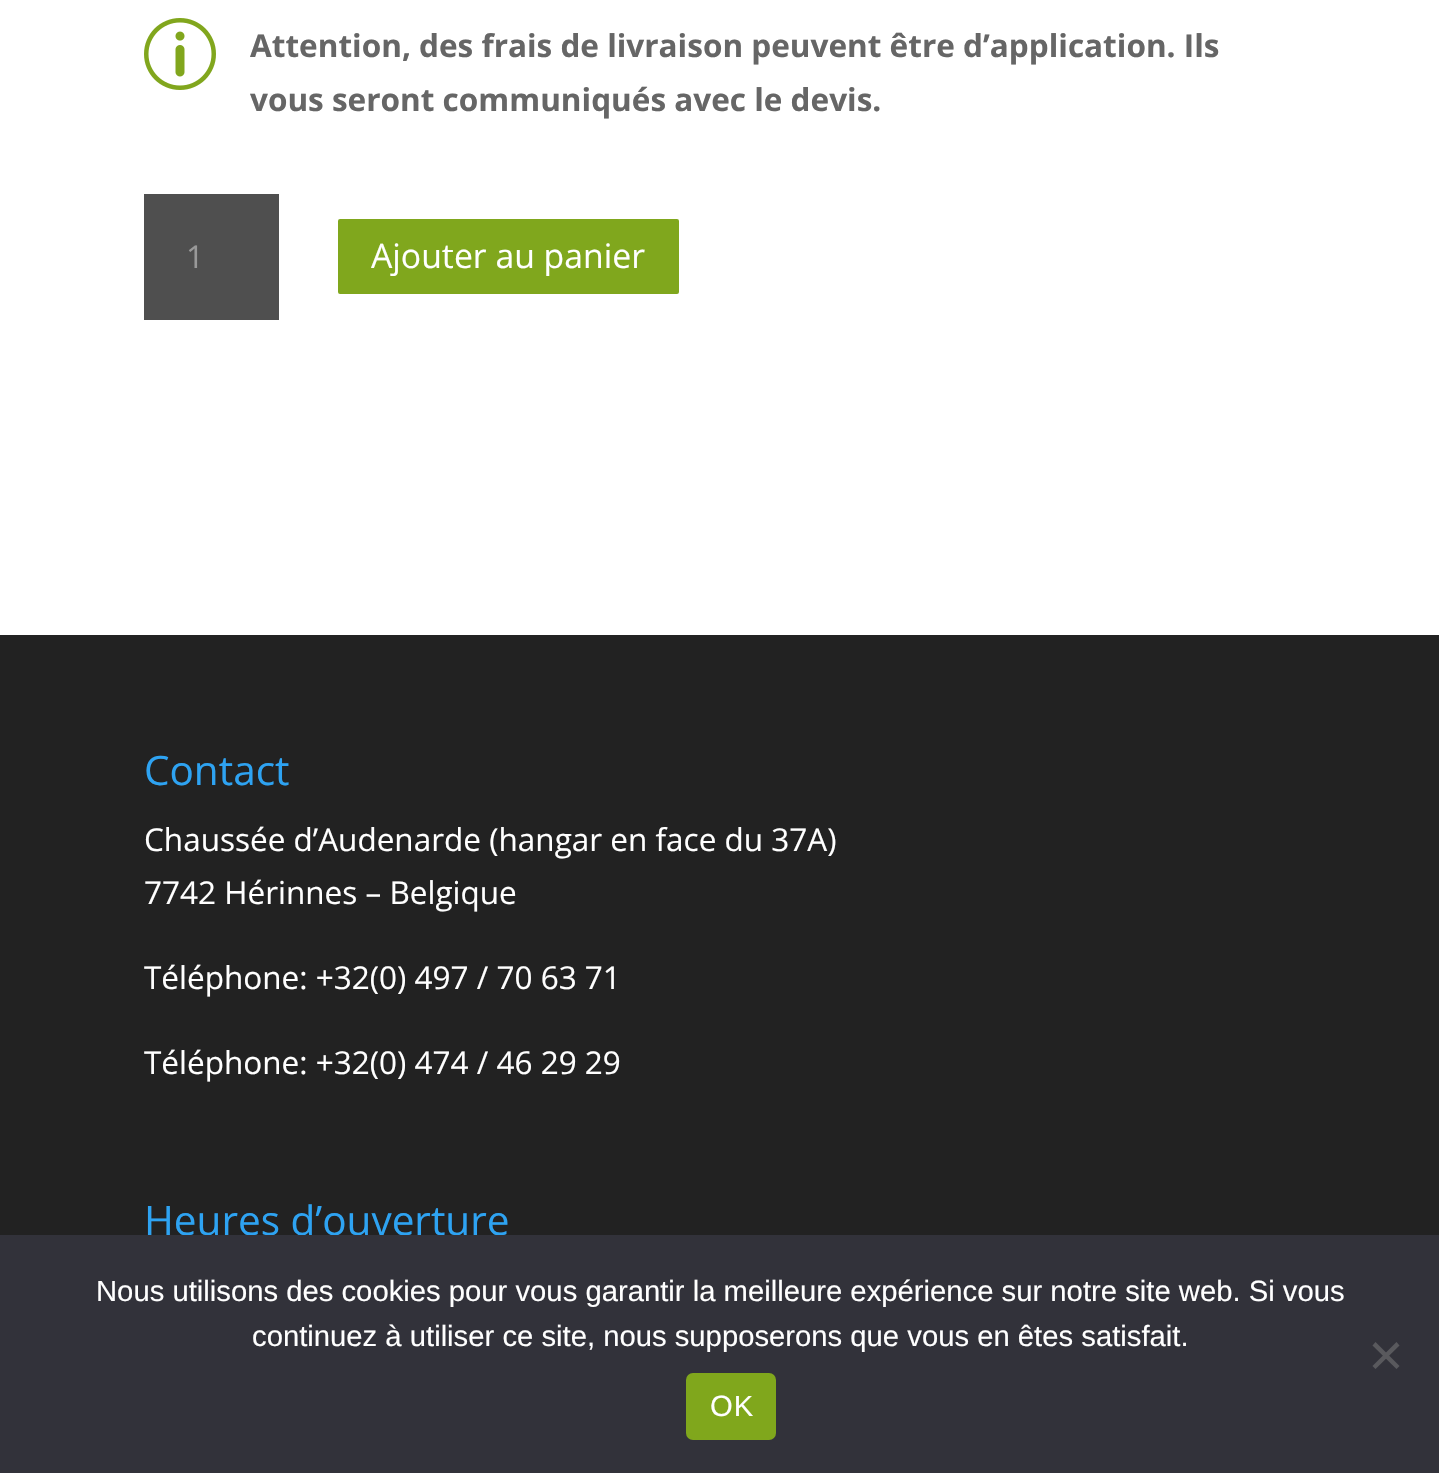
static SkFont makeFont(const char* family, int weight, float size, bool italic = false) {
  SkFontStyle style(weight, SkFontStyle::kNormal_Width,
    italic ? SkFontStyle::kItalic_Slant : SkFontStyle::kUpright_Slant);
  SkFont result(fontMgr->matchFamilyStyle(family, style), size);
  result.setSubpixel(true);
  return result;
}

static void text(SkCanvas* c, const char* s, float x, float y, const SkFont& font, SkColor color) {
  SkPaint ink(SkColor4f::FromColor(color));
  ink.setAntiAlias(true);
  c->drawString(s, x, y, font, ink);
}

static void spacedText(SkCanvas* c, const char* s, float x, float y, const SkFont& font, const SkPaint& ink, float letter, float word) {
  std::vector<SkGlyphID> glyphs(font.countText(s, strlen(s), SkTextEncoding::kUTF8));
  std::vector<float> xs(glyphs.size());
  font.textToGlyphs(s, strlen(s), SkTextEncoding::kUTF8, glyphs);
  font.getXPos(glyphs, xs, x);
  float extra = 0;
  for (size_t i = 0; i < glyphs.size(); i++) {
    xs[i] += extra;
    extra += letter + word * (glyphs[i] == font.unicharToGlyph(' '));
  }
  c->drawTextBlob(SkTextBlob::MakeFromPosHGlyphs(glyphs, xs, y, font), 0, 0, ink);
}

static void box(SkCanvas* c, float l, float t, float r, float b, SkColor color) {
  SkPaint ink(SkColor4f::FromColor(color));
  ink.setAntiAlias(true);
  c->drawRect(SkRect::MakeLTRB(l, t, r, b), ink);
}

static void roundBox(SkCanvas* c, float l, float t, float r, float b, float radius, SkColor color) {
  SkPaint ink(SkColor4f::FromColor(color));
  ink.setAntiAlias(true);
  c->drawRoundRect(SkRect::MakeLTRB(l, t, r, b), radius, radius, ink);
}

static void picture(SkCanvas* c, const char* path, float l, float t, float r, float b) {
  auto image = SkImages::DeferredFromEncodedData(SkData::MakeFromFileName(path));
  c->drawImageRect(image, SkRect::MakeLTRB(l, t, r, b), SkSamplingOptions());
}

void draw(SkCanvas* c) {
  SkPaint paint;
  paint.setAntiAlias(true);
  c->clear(0xffffffff);
  picture(c, "img_01.png", 144, 18, 216, 90);
  SkFont face1 = makeFont("Open Sans", 700, 31.5f);
  text(c, "Attention, des frais de livraison peuvent être d’application. Ils", 250, 57, face1, 0xff666666);
  text(c, "vous seront communiqués avec le devis.", 250, 111, face1, 0xff666666);
  box(c, 144, 194, 279, 320, 0xff4f4f4f);
  SkFont face2 = makeFont("Open Sans", 400, 31.5f);
  text(c, "1", 186, 268, face2, 0xff999999);
  paint.setColor(0xff80a71d);
  c->drawRoundRect(SkRect::MakeLTRB(335.5f, 216.5f, 681.5f, 296.5f), 4.5f, 4.5f, paint);
  paint.setStyle(SkPaint::kStroke_Style);
  paint.setStrokeWidth(5);
  paint.setColor(0xffffffff);
  c->drawRoundRect(SkRect::MakeLTRB(335.5f, 216.5f, 681.5f, 296.5f), 4.5f, 4.5f, paint);
  SkFont face3 = makeFont("Open Sans", 400, 33.75f);
  text(c, "Ajouter au panier", 371, 268, face3, 0xffffffff);
  box(c, 0, 635, 1439, 1235, 0xff222222);
  SkFont face4 = makeFont("Open Sans", 400, 40.5f);
  text(c, "Contact", 144, 785, face4, 0xff2ea3f2);
  text(c, "Chaussée d’Audenarde (hangar en face du 37A)", 144, 851, face2, 0xffffffff);
  text(c, "7742 Hérinnes – Belgique", 144, 904, face2, 0xffffffff);
  text(c, "Téléphone: +32(0) 497 / 70 63 71", 144, 989, face2, 0xffffffff);
  text(c, "Téléphone: +32(0) 474 / 46 29 29", 144, 1074, face2, 0xffffffff);
  text(c, "Heures d’ouverture", 144, 1235, face4, 0xff2ea3f2);
  box(c, 0, 1235, 1439, 1473, 0xff32323a);
  SkFont face5 = makeFont("Liberation Sans", 400, 29.25f);
  text(c, "Nous utilisons des cookies pour vous garantir la meilleure expérience sur notre site web. Si vous", 96, 1301, face5, 0xffffffff);
  text(c, "continuez à utiliser ce site, nous supposerons que vous en êtes satisfait.", 252, 1346, face5, 0xffffffff);
  paint.setStyle(SkPaint::kFill_Style);
  paint.setColor(0xff59595d);
  c->drawPath(SkPathBuilder().moveTo(1396.5f, 1342).lineTo(1399.5f, 1345.5f).lineTo(1375.5f, 1369).lineTo(1372.5f, 1366).close().detach(), paint);
  c->drawPath(SkPathBuilder().moveTo(1372.5f, 1345.5f).lineTo(1375.5f, 1342).lineTo(1399.5f, 1366).lineTo(1396.5f, 1369).close().detach(), paint);
  roundBox(c, 686, 1373, 776, 1440, 7, 0xff80a71c);
  paint.setColor(0xffffffff);
  spacedText(c, "OK", 710, 1416, face5, paint, 1, 0);
}
